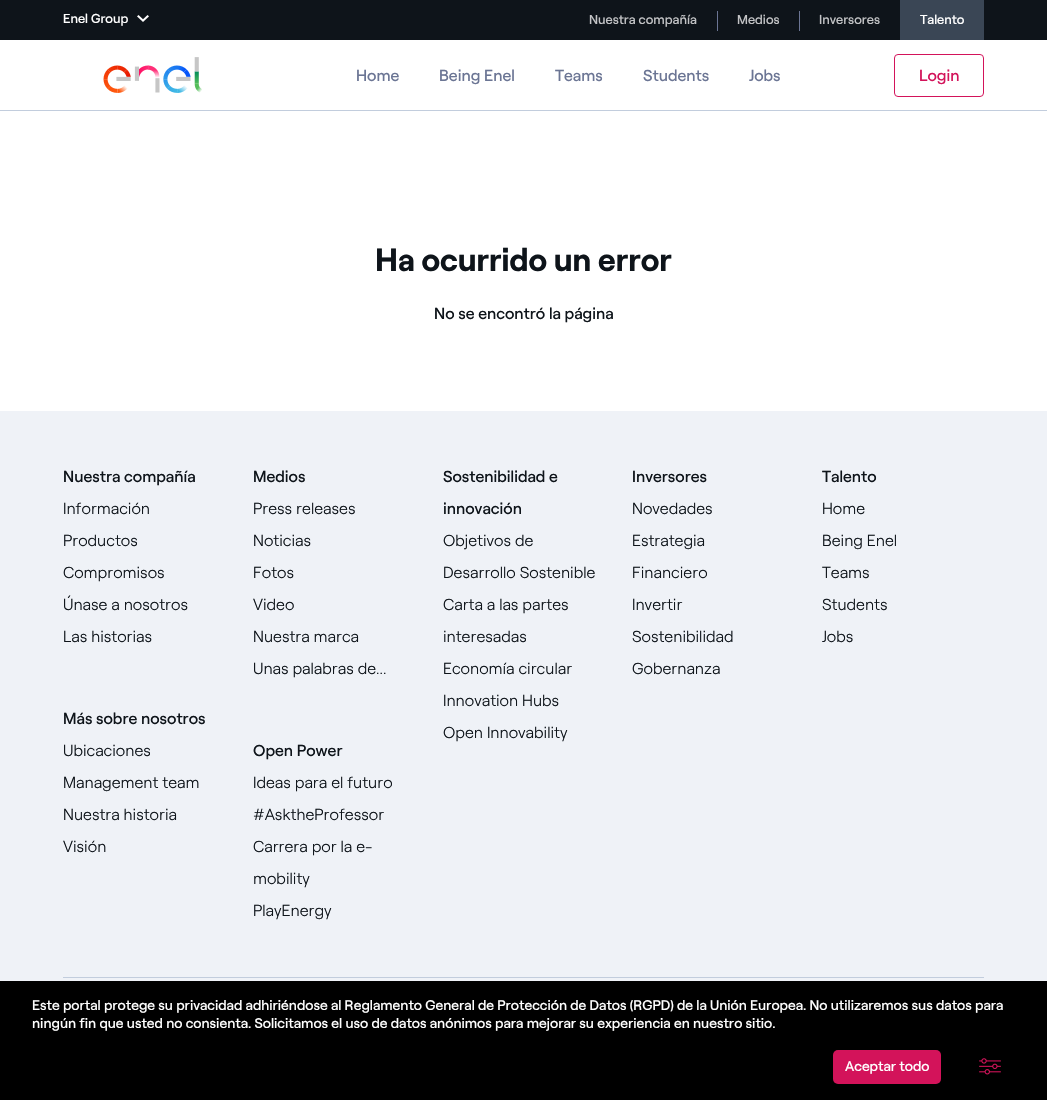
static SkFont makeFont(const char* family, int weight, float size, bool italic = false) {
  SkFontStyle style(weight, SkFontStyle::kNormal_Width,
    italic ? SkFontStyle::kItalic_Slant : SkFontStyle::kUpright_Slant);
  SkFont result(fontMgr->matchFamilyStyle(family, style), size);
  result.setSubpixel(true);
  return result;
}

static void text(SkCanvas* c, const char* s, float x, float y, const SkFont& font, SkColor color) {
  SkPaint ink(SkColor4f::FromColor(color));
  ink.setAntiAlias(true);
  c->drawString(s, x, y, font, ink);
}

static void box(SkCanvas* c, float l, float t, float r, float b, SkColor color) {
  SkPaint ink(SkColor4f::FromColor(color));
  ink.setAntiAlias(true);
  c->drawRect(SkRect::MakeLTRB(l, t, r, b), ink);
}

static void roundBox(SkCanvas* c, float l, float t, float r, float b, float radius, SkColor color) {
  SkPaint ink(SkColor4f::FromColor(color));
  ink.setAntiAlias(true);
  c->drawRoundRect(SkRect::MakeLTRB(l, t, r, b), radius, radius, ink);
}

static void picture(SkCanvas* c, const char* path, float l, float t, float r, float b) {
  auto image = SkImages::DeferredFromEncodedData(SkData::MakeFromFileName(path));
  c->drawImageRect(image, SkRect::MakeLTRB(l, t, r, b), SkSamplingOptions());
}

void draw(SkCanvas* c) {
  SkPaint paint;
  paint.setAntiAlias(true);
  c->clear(0xffffffff);
  box(c, 0, 110, 1047, 111, 0xffc2cddd);
  box(c, 0, 0, 1047, 40, 0xff0e141a);
  SkFont face1 = makeFont("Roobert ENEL", 400, 13);
  text(c, "Enel Group", 63, 23, face1, 0xffffffff);
  picture(c, "img_01.png", 137, 15, 149, 22);
  text(c, "Nuestra compañía", 589, 24, face1, 0xffc3c4c6);
  box(c, 717, 11, 718, 31, 0xff6b7594);
  text(c, "Medios", 737, 24, face1, 0xffc3c4c6);
  box(c, 799, 11, 800, 31, 0xff6b7594);
  text(c, "Inversores", 819, 24, face1, 0xffc3c4c6);
  box(c, 900, 0, 984, 40, 0xff3a4655);
  text(c, "Talento", 920, 24, face1, 0xffffffff);
  picture(c, "img_02.png", 103, 57, 202, 93);
  SkFont face2 = makeFont("Roobert ENEL", 400, 16);
  text(c, "Home", 356, 81, face2, 0xff6b7594);
  text(c, "Being Enel", 439, 81, face2, 0xff6b7594);
  text(c, "Teams", 555, 81, face2, 0xff6b7594);
  text(c, "Students", 643, 81, face2, 0xff6b7594);
  text(c, "Jobs", 749, 81, face2, 0xff6b7594);
  paint.setStyle(SkPaint::kStroke_Style);
  paint.setStrokeWidth(1);
  paint.setColor(0xffd3135a);
  c->drawRoundRect(SkRect::MakeLTRB(894.5f, 54.5f, 983.5f, 96.5f), 3.5f, 3.5f, paint);
  text(c, "Login", 919, 81, face2, 0xffd3135a);
  SkFont face3 = makeFont("Roobert ENEL", 700, 32);
  text(c, "Ha ocurrido un error", 375, 271, face3, 0xff0e141a);
  text(c, "No se encontró la página", 434, 319, face2, 0xff0e141a);
  box(c, 0, 411, 1047, 981, 0xffeff2f7);
  text(c, "Nuestra compañía", 63, 482, face2, 0xff0e141a);
  SkFont face4 = makeFont("Roobert ENEL", 300, 16);
  text(c, "Información", 63, 514, face4, 0xff0e141a);
  text(c, "Productos", 63, 546, face4, 0xff0e141a);
  text(c, "Compromisos", 63, 578, face4, 0xff0e141a);
  text(c, "Únase a nosotros", 63, 610, face4, 0xff0e141a);
  text(c, "Las historias", 63, 642, face4, 0xff0e141a);
  text(c, "Más sobre nosotros", 63, 724, face2, 0xff0e141a);
  text(c, "Ubicaciones", 63, 756, face4, 0xff0e141a);
  text(c, "Management team", 63, 788, face4, 0xff0e141a);
  text(c, "Nuestra historia", 63, 820, face4, 0xff0e141a);
  text(c, "Visión", 63, 852, face4, 0xff0e141a);
  text(c, "Medios", 253, 482, face2, 0xff0e141a);
  text(c, "Press releases", 253, 514, face4, 0xff0e141a);
  text(c, "Noticias", 253, 546, face4, 0xff0e141a);
  text(c, "Fotos", 253, 578, face4, 0xff0e141a);
  text(c, "Video", 253, 610, face4, 0xff0e141a);
  text(c, "Nuestra marca", 253, 642, face4, 0xff0e141a);
  text(c, "Unas palabras de...", 253, 674, face4, 0xff0e141a);
  text(c, "Open Power", 253, 756, face2, 0xff0e141a);
  text(c, "Ideas para el futuro", 253, 788, face4, 0xff0e141a);
  text(c, "#AsktheProfessor", 253, 820, face4, 0xff0e141a);
  text(c, "Carrera por la e-", 253, 852, face4, 0xff0e141a);
  text(c, "mobility", 253, 884, face4, 0xff0e141a);
  text(c, "PlayEnergy", 253, 916, face4, 0xff0e141a);
  text(c, "Sostenibilidad e", 443, 482, face2, 0xff0e141a);
  text(c, "innovación", 443, 514, face2, 0xff0e141a);
  text(c, "Objetivos de", 443, 546, face4, 0xff0e141a);
  text(c, "Desarrollo Sostenible", 443, 578, face4, 0xff0e141a);
  text(c, "Carta a las partes", 443, 610, face4, 0xff0e141a);
  text(c, "interesadas", 443, 642, face4, 0xff0e141a);
  text(c, "Economía circular", 443, 674, face4, 0xff0e141a);
  text(c, "Innovation Hubs", 443, 706, face4, 0xff0e141a);
  text(c, "Open Innovability", 443, 738, face4, 0xff0e141a);
  text(c, "Inversores", 632, 482, face2, 0xff0e141a);
  text(c, "Novedades", 632, 514, face4, 0xff0e141a);
  text(c, "Estrategia", 632, 546, face4, 0xff0e141a);
  text(c, "Financiero", 632, 578, face4, 0xff0e141a);
  text(c, "Invertir", 632, 610, face4, 0xff0e141a);
  text(c, "Sostenibilidad", 632, 642, face4, 0xff0e141a);
  text(c, "Gobernanza", 632, 674, face4, 0xff0e141a);
  text(c, "Talento", 822, 482, face2, 0xff0e141a);
  text(c, "Home", 822, 514, face4, 0xff0e141a);
  text(c, "Being Enel", 822, 546, face4, 0xff0e141a);
  text(c, "Teams", 822, 578, face4, 0xff0e141a);
  text(c, "Students", 822, 610, face4, 0xff0e141a);
  text(c, "Jobs", 822, 642, face4, 0xff0e141a);
  box(c, 63, 977, 984, 978, 0xffc2cddd);
  box(c, 0, 981, 1047, 1100, 0xff000000);
  SkFont face5 = makeFont("Roobert ENEL", 400, 14);
  text(c, "Este portal protege su privacidad adhiriéndose al Reglamento General de Protección de Datos (RGPD) de la Unión Europea. No utilizaremos sus datos para", 32, 1010, face5, 0xffffffff);
  text(c, "ningún fin que usted no consienta. Solicitamos el uso de datos anónimos para mejorar su experiencia en nuestro sitio.", 32, 1028, face5, 0xffffffff);
  roundBox(c, 833, 1050, 941, 1084, 5, 0xffd3135a);
  text(c, "Aceptar todo", 845, 1071, face5, 0xffffffff);
  picture(c, "img_03.png", 979, 1058, 1001, 1075);
}
